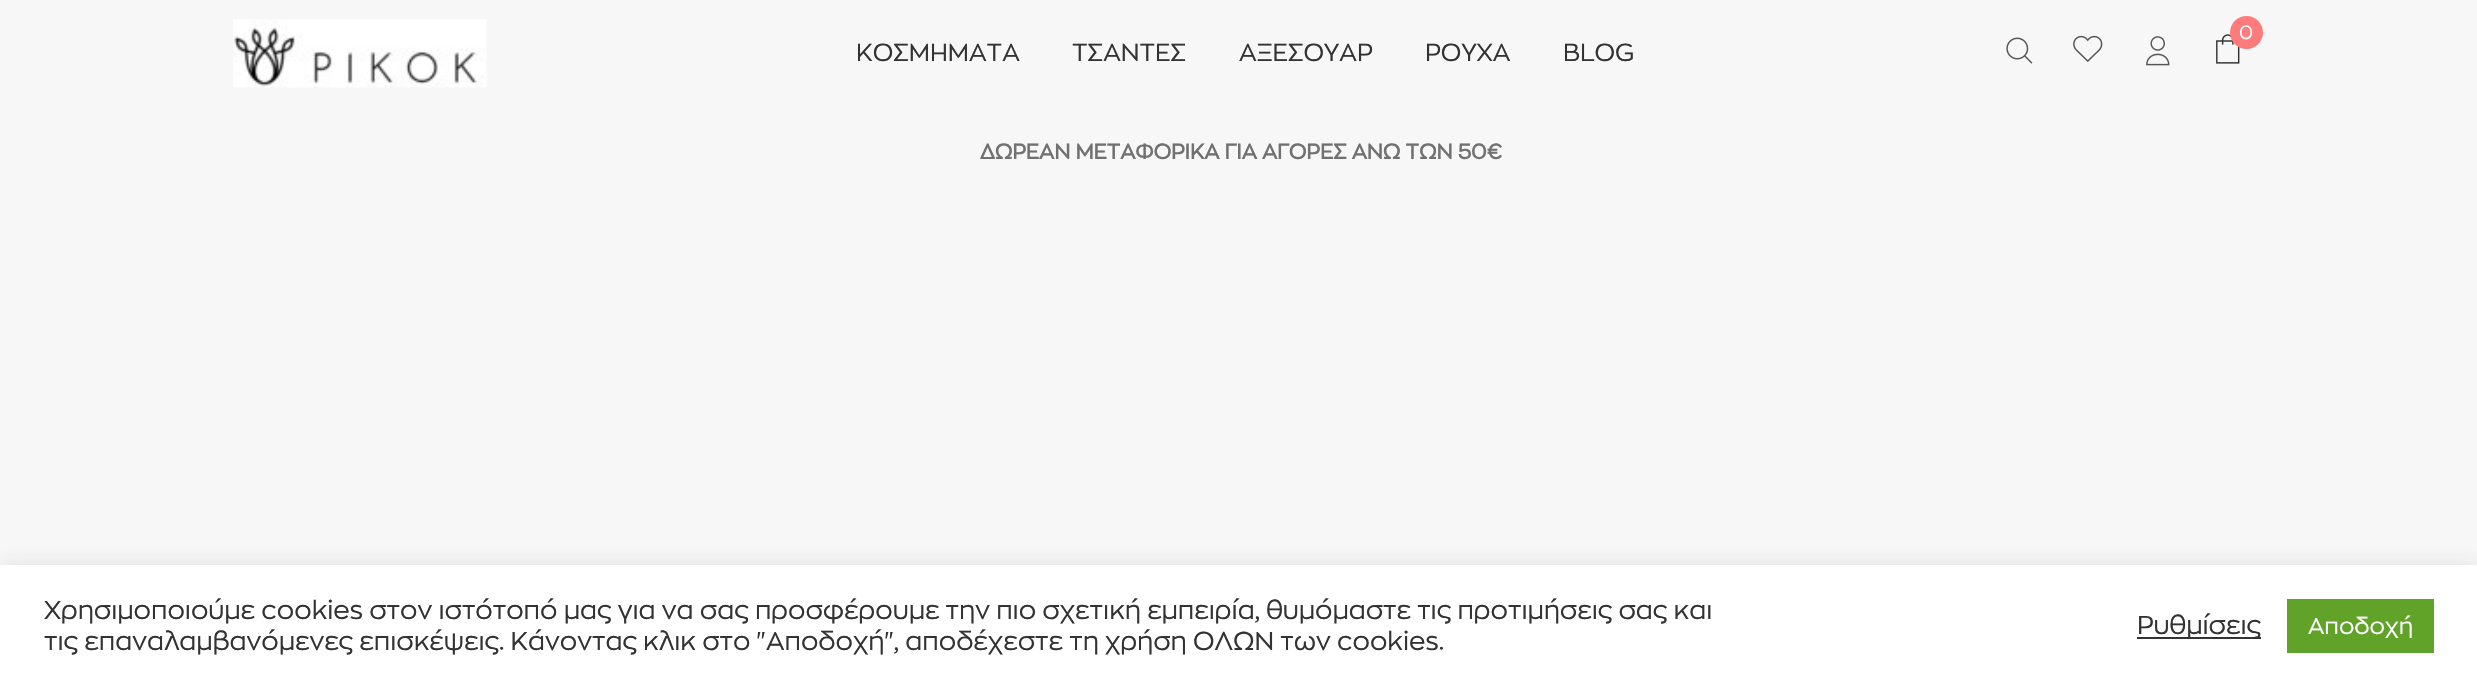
static SkFont makeFont(const char* family, int weight, float size, bool italic = false) {
  SkFontStyle style(weight, SkFontStyle::kNormal_Width,
    italic ? SkFontStyle::kItalic_Slant : SkFontStyle::kUpright_Slant);
  SkFont result(fontMgr->matchFamilyStyle(family, style), size);
  result.setSubpixel(true);
  return result;
}

static void text(SkCanvas* c, const char* s, float x, float y, const SkFont& font, SkColor color) {
  SkPaint ink(SkColor4f::FromColor(color));
  ink.setAntiAlias(true);
  c->drawString(s, x, y, font, ink);
}

static void box(SkCanvas* c, float l, float t, float r, float b, SkColor color) {
  SkPaint ink(SkColor4f::FromColor(color));
  ink.setAntiAlias(true);
  c->drawRect(SkRect::MakeLTRB(l, t, r, b), ink);
}

static void picture(SkCanvas* c, const char* path, float l, float t, float r, float b) {
  auto image = SkImages::DeferredFromEncodedData(SkData::MakeFromFileName(path));
  c->drawImageRect(image, SkRect::MakeLTRB(l, t, r, b), SkSamplingOptions());
}

void draw(SkCanvas* c) {
  SkPaint paint;
  paint.setAntiAlias(true);
  c->clear(0xfff7f7f7);
  picture(c, "img_01.png", 233, 19, 487, 88);
  picture(c, "img_02.png", 2216, 34, 2240, 64);
  paint.setColor(0xffff7b7b);
  c->drawCircle(2246.5f, 32.5f, 16.5f, paint);
  SkFont face1 = makeFont("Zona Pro", 400, 19);
  text(c, "0", 2239, 39, face1, 0xffffffff);
  SkFont face2 = makeFont("Zona Pro", 400, 24.5f);
  text(c, "ΚΟΣΜΗΜΑΤΑ", 856, 61, face2, 0xff333333);
  text(c, "ΤΣΑΝΤΕΣ", 1072, 61, face2, 0xff333333);
  text(c, "ΑΞΕΣΟΥΑΡ", 1239, 61, face2, 0xff333333);
  text(c, "ΡΟΥΧΑ", 1425, 61, face2, 0xff333333);
  text(c, "BLOG", 1563, 61, face2, 0xff333333);
  picture(c, "img_03.png", 2006, 37, 2033, 64);
  picture(c, "img_04.png", 2073, 35, 2103, 62);
  picture(c, "img_05.png", 2146, 36, 2170, 66);
  SkFont face3 = makeFont("Zona Pro", 700, 21);
  text(c, "ΔΩΡΕΑΝ ΜΕΤΑΦΟΡΙΚΑ ΓΙΑ ΑΓΟΡΕΣ ΑΝΩ ΤΩΝ 50€", 980, 159, face3, 0xff717171);
  paint.setColor(0x4dacabab);
  paint.setMaskFilter(SkMaskFilter::MakeBlur(kNormal_SkBlurStyle, 9));
  c->drawRect(SkRect::MakeLTRB(0, 564, 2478, 684), paint);
  paint.setMaskFilter(nullptr);
  box(c, 0, 565, 2477, 686, 0xffffffff);
  SkFont face4 = makeFont("Zona Pro", 400, 25.67f);
  text(c, "Χρησιμοποιούμε cookies στον ιστότοπό μας για να σας προσφέρουμε την πιο σχετική εμπειρία, θυμόμαστε τις προτιμήσεις σας και", 44, 619, face4, 0xff333333);
  text(c, "τις επαναλαμβανόμενες επισκέψεις. Κάνοντας κλικ στο \"Αποδοχή\", αποδέχεστε τη χρήση ΟΛΩΝ των cookies.", 44, 650, face4, 0xff333333);
  box(c, 2137, 637, 2261, 639, 0xff333333);
  text(c, "Ρυθμίσεις", 2137, 634, face4, 0xff333333);
  box(c, 2287, 599, 2434, 653, 0xff61a229);
  SkFont face5 = makeFont("Zona Pro", 400, 22.75f);
  text(c, "Aποδοχή", 2308, 634, face5, 0xffffffff);
}
